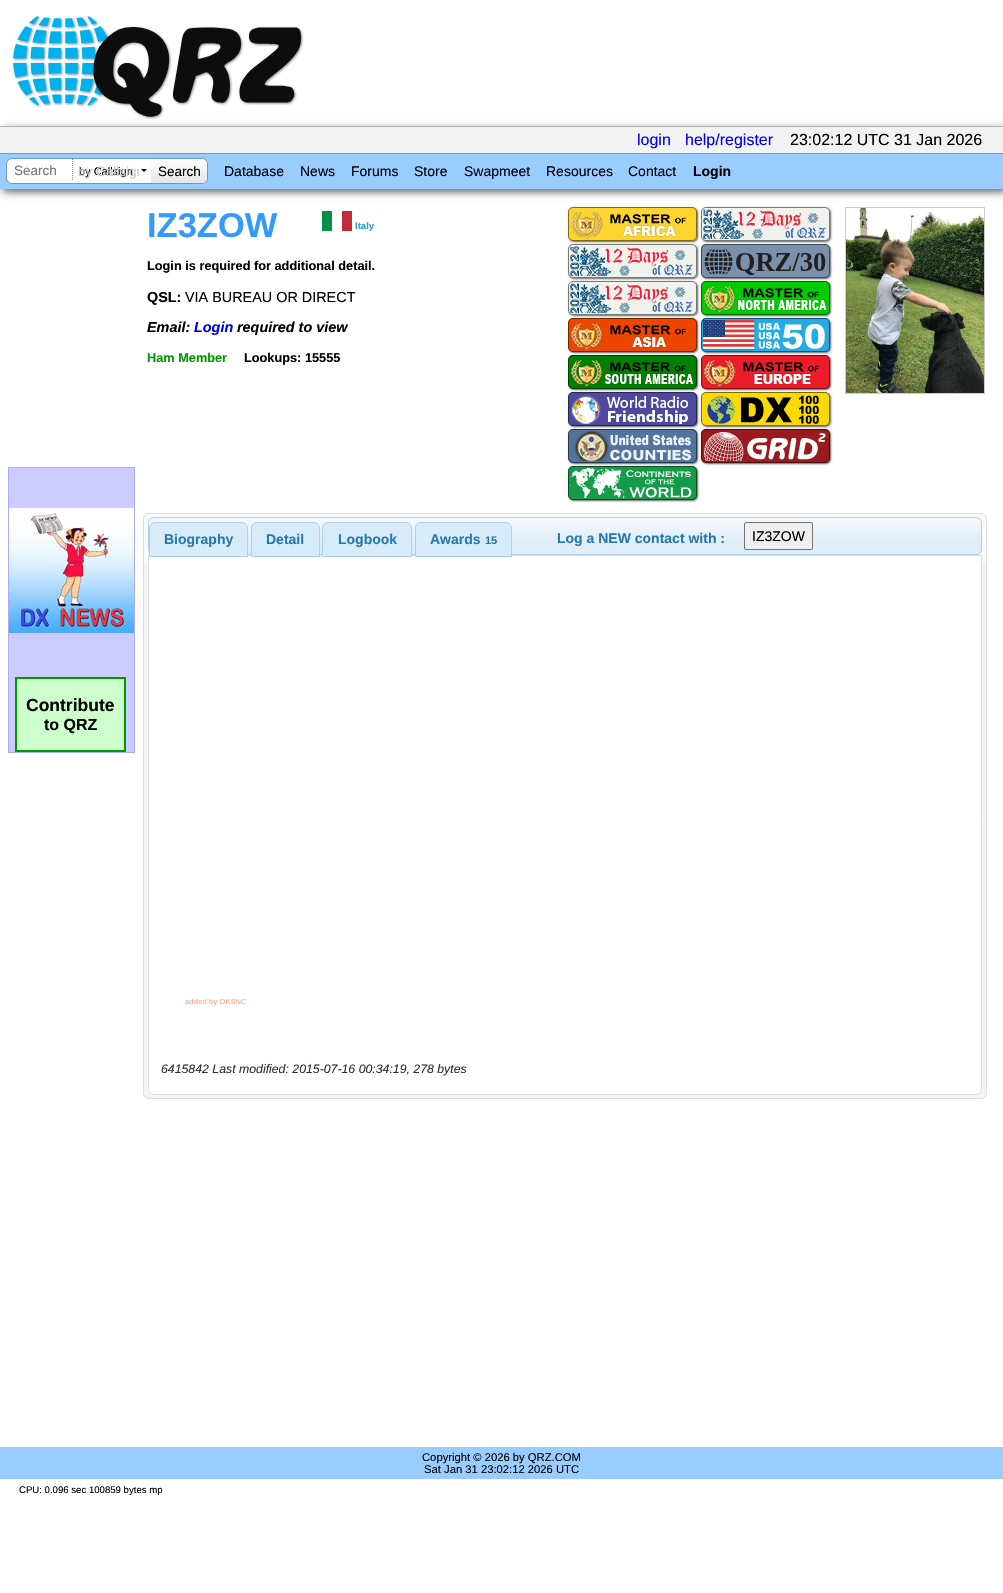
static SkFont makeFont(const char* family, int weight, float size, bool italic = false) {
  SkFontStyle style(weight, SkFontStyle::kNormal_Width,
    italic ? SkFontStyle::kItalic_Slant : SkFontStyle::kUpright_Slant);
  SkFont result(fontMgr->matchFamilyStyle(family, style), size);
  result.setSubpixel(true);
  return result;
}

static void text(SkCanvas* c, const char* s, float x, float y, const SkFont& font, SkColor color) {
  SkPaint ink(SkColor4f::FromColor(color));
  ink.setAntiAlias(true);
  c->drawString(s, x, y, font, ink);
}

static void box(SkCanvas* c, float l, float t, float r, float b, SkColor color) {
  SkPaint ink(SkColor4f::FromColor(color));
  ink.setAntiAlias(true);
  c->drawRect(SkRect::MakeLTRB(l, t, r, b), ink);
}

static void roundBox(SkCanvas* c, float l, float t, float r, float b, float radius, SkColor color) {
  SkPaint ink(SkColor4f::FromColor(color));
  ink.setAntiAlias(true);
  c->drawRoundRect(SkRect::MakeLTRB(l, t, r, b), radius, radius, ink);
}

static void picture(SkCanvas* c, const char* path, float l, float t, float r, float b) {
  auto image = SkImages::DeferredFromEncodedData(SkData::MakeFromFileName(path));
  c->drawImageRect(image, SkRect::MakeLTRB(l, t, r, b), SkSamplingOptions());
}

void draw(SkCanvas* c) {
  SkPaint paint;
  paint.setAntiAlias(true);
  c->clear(0xffffffff);
  paint.setColor(0xff666666);
  paint.setMaskFilter(SkMaskFilter::MakeBlur(kNormal_SkBlurStyle, 4));
  c->drawRect(SkRect::MakeLTRB(3, 129, 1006, 192), paint);
  paint.setMaskFilter(nullptr);
  picture(c, "img_01.png", 12, 15, 304, 120);
  box(c, 0, 127, 1003, 153, 0xfff3f3f3);
  box(c, 0, 126, 1003, 127, 0xffb3b3b3);
  SkFont face1 = makeFont("Liberation Sans", 400, 16);
  text(c, "login", 637, 145, face1, 0xff0000ee);
  text(c, "help/register", 685, 145, face1, 0xff0000ee);
  text(c, "23:02:12 UTC 31 Jan 2026", 790, 145, face1, 0xff000000);
  box(c, 0, 154, 1003, 189, 0xff99ccff);
  box(c, 0, 153, 1003, 154, 0xff6699cc);
  paint.setColor(0xffffffff);
  c->drawRoundRect(SkRect::MakeLTRB(6.5f, 158.5f, 207.5f, 183.5f), 5.5f, 5.5f, paint);
  paint.setStyle(SkPaint::kStroke_Style);
  paint.setStrokeWidth(1);
  paint.setColor(0xff6699cc);
  c->drawRoundRect(SkRect::MakeLTRB(6.5f, 158.5f, 207.5f, 183.5f), 5.5f, 5.5f, paint);
  paint.setPathEffect(SkDashPathEffect::Make({{1, 1}}, 0));
  c->drawPath(SkPathBuilder().moveTo(72.5f, 159).lineTo(72.5f, 181).detach(), paint);
  paint.setPathEffect(nullptr);
  SkFont face2 = makeFont("Liberation Sans", 400, 13.5f);
  text(c, "Search", 14, 175, face2, 0xff757575);
  SkFont face3 = makeFont("Liberation Sans", 400, 11);
  text(c, "by Callsign", 79, 175, face3, 0xff000000);
  c->save();
  c->clipRect(SkRect::MakeLTRB(78, 163, 139, 180));
  text(c, "by Callsign", 78, 176, face2, 0xffc7c7c7);
  c->restore();
  paint.setStyle(SkPaint::kFill_Style);
  paint.setColor(0xff000000);
  c->drawPath(SkPathBuilder().moveTo(141, 169).lineTo(147, 169).lineTo(144, 172).close().detach(), paint);
  {
    const SkColor colors[] = {0xffffffff, 0xffe5e5e5};
    const float stops[] = {0, 1};
    const SkPoint ends[] = {{179, 159}, {179, 183}};
    paint.setShader(SkGradientShader::MakeLinear(ends, colors, stops, 2, SkTileMode::kClamp));
    paint.setAlpha(255);
  }
  c->drawPath(SkPathBuilder().moveTo(151, 159).lineTo(201, 159).cubicTo(204.5f, 159, 207, 161.5f, 207, 165).lineTo(207, 177).cubicTo(207, 180.5f, 204.5f, 183, 201, 183).lineTo(151, 183).close().detach(), paint);
  text(c, "Search", 158, 176, face2, 0xff000000);
  SkFont face4 = makeFont("Liberation Sans", 400, 14);
  text(c, "Database", 224, 176, face4, 0xff000000);
  text(c, "News", 300, 176, face4, 0xff000000);
  text(c, "Forums", 351, 176, face4, 0xff000000);
  text(c, "Store", 414, 176, face4, 0xff000000);
  text(c, "Swapmeet", 464, 176, face4, 0xff000000);
  text(c, "Resources", 546, 176, face4, 0xff000000);
  text(c, "Contact", 628, 176, face4, 0xff000000);
  SkFont face5 = makeFont("Liberation Sans", 700, 14);
  text(c, "Login", 693, 176, face5, 0xff000000);
  paint.setShader(nullptr);
  paint.setColor(0xffccccff);
  c->drawRect(SkRect::MakeLTRB(8.5f, 467.5f, 134.5f, 752.5f), paint);
  paint.setStyle(SkPaint::kStroke_Style);
  paint.setColor(0xffaaaaff);
  c->drawRect(SkRect::MakeLTRB(8.5f, 467.5f, 134.5f, 752.5f), paint);
  picture(c, "img_02.png", 9, 508, 134, 633);
  paint.setStyle(SkPaint::kFill_Style);
  paint.setColor(0xffccffcc);
  c->drawRect(SkRect::MakeLTRB(16, 678, 125, 751), paint);
  paint.setStyle(SkPaint::kStroke_Style);
  paint.setStrokeWidth(2);
  paint.setColor(0xff009900);
  c->drawRect(SkRect::MakeLTRB(16, 678, 125, 751), paint);
  SkFont face6 = makeFont("Liberation Sans", 700, 17.5f);
  text(c, "Contribute", 26, 711, face6, 0xff000000);
  SkFont face7 = makeFont("Liberation Sans", 700, 16);
  text(c, "to QRZ", 44, 730, face7, 0xff000000);
  SkFont face8 = makeFont("Liberation Sans", 700, 34.5f);
  text(c, "IZ3ZOW", 147, 237, face8, 0xff3399ff);
  picture(c, "img_03.png", 322, 211, 352, 231);
  SkFont face9 = makeFont("Liberation Sans", 700, 9.6f);
  text(c, "Italy", 355, 229, face9, 0xff3399cc);
  SkFont face10 = makeFont("Liberation Sans", 700, 12.75f);
  text(c, "Login is required for additional detail.", 147, 270, face10, 0xff000000);
  SkFont face11 = makeFont("Liberation Sans", 700, 14.4f);
  text(c, "QSL:", 147, 302, face11, 0xff000000);
  SkFont face12 = makeFont("Liberation Sans", 400, 14.4f);
  text(c, "VIA BUREAU OR DIRECT", 185, 302, face12, 0xff000000);
  SkFont face13 = makeFont("Liberation Sans", 700, 14.4f, true);
  text(c, "Email:", 147, 332, face13, 0xff000000);
  text(c, "Login", 194, 332, face13, 0xff0000ee);
  text(c, "required to view", 237, 332, face13, 0xff000000);
  text(c, "Ham Member", 147, 362, face10, 0xff009900);
  text(c, "Lookups: 15555", 244, 362, face10, 0xff000000);
  paint.setStyle(SkPaint::kFill_Style);
  paint.setColor(0xff666666);
  paint.setMaskFilter(SkMaskFilter::MakeBlur(kNormal_SkBlurStyle, 1));
  c->drawRoundRect(SkRect::MakeLTRB(569, 208, 698, 242), 5, 5, paint);
  paint.setMaskFilter(nullptr);
  roundBox(c, 568, 207, 697, 241, 5, 0xfffed52e);
  paint.setStyle(SkPaint::kStroke_Style);
  paint.setStrokeWidth(1);
  paint.setColor(0x80000000);
  c->drawRoundRect(SkRect::MakeLTRB(568.5f, 207.5f, 696.5f, 240.5f), 4.5f, 4.5f, paint);
  picture(c, "img_04.png", 570, 211, 686, 239);
  paint.setStyle(SkPaint::kFill_Style);
  paint.setColor(0xff666666);
  paint.setMaskFilter(SkMaskFilter::MakeBlur(kNormal_SkBlurStyle, 1));
  c->drawRoundRect(SkRect::MakeLTRB(702, 208, 831, 242), 5, 5, paint);
  paint.setMaskFilter(nullptr);
  roundBox(c, 701, 207, 830, 241, 5, 0xfff0f3eb);
  paint.setStyle(SkPaint::kStroke_Style);
  paint.setColor(0x80000000);
  c->drawRoundRect(SkRect::MakeLTRB(701.5f, 207.5f, 829.5f, 240.5f), 4.5f, 4.5f, paint);
  picture(c, "img_05.png", 703, 209, 826, 239);
  paint.setStyle(SkPaint::kFill_Style);
  paint.setColor(0xff666666);
  paint.setMaskFilter(SkMaskFilter::MakeBlur(kNormal_SkBlurStyle, 1));
  c->drawRoundRect(SkRect::MakeLTRB(569, 245, 698, 279), 5, 5, paint);
  paint.setMaskFilter(nullptr);
  roundBox(c, 568, 244, 697, 278, 5, 0xfff0f3eb);
  paint.setStyle(SkPaint::kStroke_Style);
  paint.setColor(0x80000000);
  c->drawRoundRect(SkRect::MakeLTRB(568.5f, 244.5f, 696.5f, 277.5f), 4.5f, 4.5f, paint);
  picture(c, "img_06.png", 570, 246, 693, 276);
  paint.setStyle(SkPaint::kFill_Style);
  paint.setColor(0xff666666);
  paint.setMaskFilter(SkMaskFilter::MakeBlur(kNormal_SkBlurStyle, 1));
  c->drawRoundRect(SkRect::MakeLTRB(702, 245, 831, 279), 5, 5, paint);
  paint.setMaskFilter(nullptr);
  roundBox(c, 701, 244, 830, 278, 5, 0xff7991aa);
  paint.setStyle(SkPaint::kStroke_Style);
  paint.setColor(0x80000000);
  c->drawRoundRect(SkRect::MakeLTRB(701.5f, 244.5f, 829.5f, 277.5f), 4.5f, 4.5f, paint);
  picture(c, "img_07.png", 704, 249, 826, 275);
  paint.setStyle(SkPaint::kFill_Style);
  paint.setColor(0xff666666);
  paint.setMaskFilter(SkMaskFilter::MakeBlur(kNormal_SkBlurStyle, 1));
  c->drawRoundRect(SkRect::MakeLTRB(569, 282, 698, 316), 5, 5, paint);
  paint.setMaskFilter(nullptr);
  roundBox(c, 568, 281, 697, 315, 5, 0xfff0f3eb);
  paint.setStyle(SkPaint::kStroke_Style);
  paint.setColor(0x80000000);
  c->drawRoundRect(SkRect::MakeLTRB(568.5f, 281.5f, 696.5f, 314.5f), 4.5f, 4.5f, paint);
  picture(c, "img_08.png", 570, 283, 693, 313);
  paint.setStyle(SkPaint::kFill_Style);
  paint.setColor(0xff666666);
  paint.setMaskFilter(SkMaskFilter::MakeBlur(kNormal_SkBlurStyle, 1));
  c->drawRoundRect(SkRect::MakeLTRB(702, 282, 831, 316), 5, 5, paint);
  paint.setMaskFilter(nullptr);
  roundBox(c, 701, 281, 830, 315, 5, 0xff00cc00);
  paint.setStyle(SkPaint::kStroke_Style);
  paint.setColor(0x80000000);
  c->drawRoundRect(SkRect::MakeLTRB(701.5f, 281.5f, 829.5f, 314.5f), 4.5f, 4.5f, paint);
  picture(c, "img_09.png", 703, 285, 827, 313);
  paint.setStyle(SkPaint::kFill_Style);
  paint.setColor(0xff666666);
  paint.setMaskFilter(SkMaskFilter::MakeBlur(kNormal_SkBlurStyle, 1));
  c->drawRoundRect(SkRect::MakeLTRB(569, 319, 698, 353), 5, 5, paint);
  paint.setMaskFilter(nullptr);
  roundBox(c, 568, 318, 697, 352, 5, 0xffee4600);
  paint.setStyle(SkPaint::kStroke_Style);
  paint.setColor(0x80000000);
  c->drawRoundRect(SkRect::MakeLTRB(568.5f, 318.5f, 696.5f, 351.5f), 4.5f, 4.5f, paint);
  picture(c, "img_10.png", 570, 322, 686, 350);
  paint.setStyle(SkPaint::kFill_Style);
  paint.setColor(0xff666666);
  paint.setMaskFilter(SkMaskFilter::MakeBlur(kNormal_SkBlurStyle, 1));
  c->drawRoundRect(SkRect::MakeLTRB(702, 319, 831, 353), 5, 5, paint);
  paint.setMaskFilter(nullptr);
  roundBox(c, 701, 318, 830, 352, 5, 0xff25aae1);
  paint.setStyle(SkPaint::kStroke_Style);
  paint.setColor(0x80000000);
  c->drawRoundRect(SkRect::MakeLTRB(701.5f, 318.5f, 829.5f, 351.5f), 4.5f, 4.5f, paint);
  picture(c, "img_11.png", 703, 320, 828, 350);
  paint.setStyle(SkPaint::kFill_Style);
  paint.setColor(0xff666666);
  paint.setMaskFilter(SkMaskFilter::MakeBlur(kNormal_SkBlurStyle, 1));
  c->drawRoundRect(SkRect::MakeLTRB(569, 356, 698, 390), 5, 5, paint);
  paint.setMaskFilter(nullptr);
  roundBox(c, 568, 355, 697, 389, 5, 0xff008000);
  paint.setStyle(SkPaint::kStroke_Style);
  paint.setColor(0x80000000);
  c->drawRoundRect(SkRect::MakeLTRB(568.5f, 355.5f, 696.5f, 388.5f), 4.5f, 4.5f, paint);
  picture(c, "img_12.png", 570, 359, 694, 387);
  paint.setStyle(SkPaint::kFill_Style);
  paint.setColor(0xff666666);
  paint.setMaskFilter(SkMaskFilter::MakeBlur(kNormal_SkBlurStyle, 1));
  c->drawRoundRect(SkRect::MakeLTRB(702, 356, 831, 390), 5, 5, paint);
  paint.setMaskFilter(nullptr);
  roundBox(c, 701, 355, 830, 389, 5, 0xffec1d29);
  paint.setStyle(SkPaint::kStroke_Style);
  paint.setColor(0x80000000);
  c->drawRoundRect(SkRect::MakeLTRB(701.5f, 355.5f, 829.5f, 388.5f), 4.5f, 4.5f, paint);
  picture(c, "img_13.png", 703, 359, 819, 387);
  paint.setStyle(SkPaint::kFill_Style);
  paint.setColor(0xff666666);
  paint.setMaskFilter(SkMaskFilter::MakeBlur(kNormal_SkBlurStyle, 1));
  c->drawRoundRect(SkRect::MakeLTRB(569, 393, 698, 427), 5, 5, paint);
  paint.setMaskFilter(nullptr);
  roundBox(c, 568, 392, 697, 426, 5, 0xff4f499d);
  paint.setStyle(SkPaint::kStroke_Style);
  paint.setColor(0x80000000);
  c->drawRoundRect(SkRect::MakeLTRB(568.5f, 392.5f, 696.5f, 425.5f), 4.5f, 4.5f, paint);
  picture(c, "img_14.png", 570, 394, 695, 424);
  paint.setStyle(SkPaint::kFill_Style);
  paint.setColor(0xff666666);
  paint.setMaskFilter(SkMaskFilter::MakeBlur(kNormal_SkBlurStyle, 1));
  c->drawRoundRect(SkRect::MakeLTRB(702, 393, 831, 427), 5, 5, paint);
  paint.setMaskFilter(nullptr);
  roundBox(c, 701, 392, 830, 426, 5, 0xfff9da07);
  paint.setStyle(SkPaint::kStroke_Style);
  paint.setColor(0x80000000);
  c->drawRoundRect(SkRect::MakeLTRB(701.5f, 392.5f, 829.5f, 425.5f), 4.5f, 4.5f, paint);
  picture(c, "img_15.png", 703, 394, 828, 424);
  paint.setStyle(SkPaint::kFill_Style);
  paint.setColor(0xff666666);
  paint.setMaskFilter(SkMaskFilter::MakeBlur(kNormal_SkBlurStyle, 1));
  c->drawRoundRect(SkRect::MakeLTRB(569, 430, 698, 464), 5, 5, paint);
  paint.setMaskFilter(nullptr);
  roundBox(c, 568, 429, 697, 463, 5, 0xff52749d);
  paint.setStyle(SkPaint::kStroke_Style);
  paint.setColor(0x80000000);
  c->drawRoundRect(SkRect::MakeLTRB(568.5f, 429.5f, 696.5f, 462.5f), 4.5f, 4.5f, paint);
  picture(c, "img_16.png", 570, 431, 695, 461);
  paint.setStyle(SkPaint::kFill_Style);
  paint.setColor(0xff666666);
  paint.setMaskFilter(SkMaskFilter::MakeBlur(kNormal_SkBlurStyle, 1));
  c->drawRoundRect(SkRect::MakeLTRB(702, 430, 831, 464), 5, 5, paint);
  paint.setMaskFilter(nullptr);
  roundBox(c, 701, 429, 830, 463, 5, 0xff991b1e);
  paint.setStyle(SkPaint::kStroke_Style);
  paint.setColor(0x80000000);
  c->drawRoundRect(SkRect::MakeLTRB(701.5f, 429.5f, 829.5f, 462.5f), 4.5f, 4.5f, paint);
  picture(c, "img_17.png", 703, 431, 828, 461);
  paint.setStyle(SkPaint::kFill_Style);
  paint.setColor(0xff666666);
  paint.setMaskFilter(SkMaskFilter::MakeBlur(kNormal_SkBlurStyle, 1));
  c->drawRoundRect(SkRect::MakeLTRB(569, 467, 698, 501), 5, 5, paint);
  paint.setMaskFilter(nullptr);
  roundBox(c, 568, 466, 697, 500, 5, 0xff139b48);
  paint.setStyle(SkPaint::kStroke_Style);
  paint.setColor(0x80000000);
  c->drawRoundRect(SkRect::MakeLTRB(568.5f, 466.5f, 696.5f, 499.5f), 4.5f, 4.5f, paint);
  picture(c, "img_18.png", 570, 468, 695, 498);
  paint.setColor(0xffcccccc);
  c->drawRect(SkRect::MakeLTRB(845.5f, 207.5f, 984.5f, 393.5f), paint);
  picture(c, "img_19.png", 846, 208, 984, 393);
  roundBox(c, 143, 513, 987, 1099, 6, 0xfff2f5f7);
  picture(c, "img_20.png", 143, 514, 987, 563);
  paint.setColor(0xffdddddd);
  c->drawRoundRect(SkRect::MakeLTRB(143.5f, 513.5f, 986.5f, 1098.5f), 5.5f, 5.5f, paint);
  picture(c, "img_21.png", 148, 517, 982, 555);
  paint.setColor(0xffaed0ea);
  c->drawRoundRect(SkRect::MakeLTRB(148.5f, 517.5f, 981.5f, 554.5f), 5.5f, 5.5f, paint);
  paint.setStyle(SkPaint::kFill_Style);
  paint.setColor(0xffffffff);
  c->drawPath(SkPathBuilder().moveTo(148.5f, 555.5f).lineTo(981.5f, 555.5f).lineTo(981.5f, 1089).cubicTo(981.5f, 1092, 979, 1094.5f, 976, 1094.5f).lineTo(154, 1094.5f).cubicTo(151, 1094.5f, 148.5f, 1092, 148.5f, 1089).close().detach(), paint);
  paint.setStyle(SkPaint::kStroke_Style);
  paint.setColor(0xffdddddd);
  c->drawPath(SkPathBuilder().moveTo(148.5f, 555.5f).lineTo(981.5f, 555.5f).lineTo(981.5f, 1089).cubicTo(981.5f, 1092, 979, 1094.5f, 976, 1094.5f).lineTo(154, 1094.5f).cubicTo(151, 1094.5f, 148.5f, 1092, 148.5f, 1089).close().detach(), paint);
  paint.setStyle(SkPaint::kFill_Style);
  paint.setColor(0xffd7ebf9);
  c->drawPath(SkPathBuilder().moveTo(155, 522.5f).lineTo(242, 522.5f).cubicTo(245, 522.5f, 247.5f, 525, 247.5f, 528).lineTo(247.5f, 556.5f).lineTo(149.5f, 556.5f).lineTo(149.5f, 528).cubicTo(149.5f, 525, 152, 522.5f, 155, 522.5f).close().detach(), paint);
  paint.setStyle(SkPaint::kStroke_Style);
  paint.setColor(0xffaed0ea);
  c->drawPath(SkPathBuilder().moveTo(155, 522.5f).lineTo(242, 522.5f).cubicTo(245, 522.5f, 247.5f, 525, 247.5f, 528).lineTo(247.5f, 556.5f).lineTo(149.5f, 556.5f).lineTo(149.5f, 528).cubicTo(149.5f, 525, 152, 522.5f, 155, 522.5f).close().detach(), paint);
  text(c, "Biography", 164, 544, face5, 0xff2779aa);
  paint.setStyle(SkPaint::kFill_Style);
  paint.setColor(0xffd7ebf9);
  c->drawPath(SkPathBuilder().moveTo(257, 522.5f).lineTo(314, 522.5f).cubicTo(317, 522.5f, 319.5f, 525, 319.5f, 528).lineTo(319.5f, 556.5f).lineTo(251.5f, 556.5f).lineTo(251.5f, 528).cubicTo(251.5f, 525, 254, 522.5f, 257, 522.5f).close().detach(), paint);
  paint.setStyle(SkPaint::kStroke_Style);
  paint.setColor(0xffaed0ea);
  c->drawPath(SkPathBuilder().moveTo(257, 522.5f).lineTo(314, 522.5f).cubicTo(317, 522.5f, 319.5f, 525, 319.5f, 528).lineTo(319.5f, 556.5f).lineTo(251.5f, 556.5f).lineTo(251.5f, 528).cubicTo(251.5f, 525, 254, 522.5f, 257, 522.5f).close().detach(), paint);
  text(c, "Detail", 266, 544, face5, 0xff2779aa);
  paint.setStyle(SkPaint::kFill_Style);
  paint.setColor(0xffd7ebf9);
  c->drawPath(SkPathBuilder().moveTo(328, 522.5f).lineTo(406, 522.5f).cubicTo(409, 522.5f, 411.5f, 525, 411.5f, 528).lineTo(411.5f, 556.5f).lineTo(322.5f, 556.5f).lineTo(322.5f, 528).cubicTo(322.5f, 525, 325, 522.5f, 328, 522.5f).close().detach(), paint);
  paint.setStyle(SkPaint::kStroke_Style);
  paint.setColor(0xffaed0ea);
  c->drawPath(SkPathBuilder().moveTo(328, 522.5f).lineTo(406, 522.5f).cubicTo(409, 522.5f, 411.5f, 525, 411.5f, 528).lineTo(411.5f, 556.5f).lineTo(322.5f, 556.5f).lineTo(322.5f, 528).cubicTo(322.5f, 525, 325, 522.5f, 328, 522.5f).close().detach(), paint);
  text(c, "Logbook", 338, 544, face5, 0xff2779aa);
  paint.setStyle(SkPaint::kFill_Style);
  paint.setColor(0xffd7ebf9);
  c->drawPath(SkPathBuilder().moveTo(421, 522.5f).lineTo(506, 522.5f).cubicTo(509, 522.5f, 511.5f, 525, 511.5f, 528).lineTo(511.5f, 556.5f).lineTo(415.5f, 556.5f).lineTo(415.5f, 528).cubicTo(415.5f, 525, 418, 522.5f, 421, 522.5f).close().detach(), paint);
  paint.setStyle(SkPaint::kStroke_Style);
  paint.setColor(0xffaed0ea);
  c->drawPath(SkPathBuilder().moveTo(421, 522.5f).lineTo(506, 522.5f).cubicTo(509, 522.5f, 511.5f, 525, 511.5f, 528).lineTo(511.5f, 556.5f).lineTo(415.5f, 556.5f).lineTo(415.5f, 528).cubicTo(415.5f, 525, 418, 522.5f, 421, 522.5f).close().detach(), paint);
  text(c, "Awards", 430, 544, face5, 0xff2779aa);
  SkFont face14 = makeFont("Liberation Sans", 700, 11);
  text(c, "15", 485, 544, face14, 0xff2779aa);
  text(c, "Log a NEW contact with :", 557, 543, face5, 0xff2779aa);
  paint.setStyle(SkPaint::kFill_Style);
  paint.setColor(0xffefefef);
  c->drawRoundRect(SkRect::MakeLTRB(744.5f, 522.5f, 812.5f, 549.5f), 1.5f, 1.5f, paint);
  paint.setStyle(SkPaint::kStroke_Style);
  paint.setColor(0xff767676);
  c->drawRoundRect(SkRect::MakeLTRB(744.5f, 522.5f, 812.5f, 549.5f), 1.5f, 1.5f, paint);
  text(c, "IZ3ZOW", 752, 541, face4, 0xff000000);
  picture(c, "img_22.png", 185, 999, 247, 1006);
  SkFont face15 = makeFont("Liberation Sans", 400, 12.3f, true);
  text(c, "6415842 Last modified: 2015-07-16 00:34:19, 278 bytes", 161, 1073, face15, 0xff362b36);
  box(c, 0, 1447, 1003, 1479, 0xff99ccff);
  SkFont face16 = makeFont("Liberation Sans", 400, 11.25f);
  text(c, "Copyright © 2026 by QRZ.COM", 422, 1461, face16, 0xff000000);
  text(c, "Sat Jan 31 23:02:12 2026 UTC", 424, 1473, face16, 0xff000000);
  SkFont face17 = makeFont("Liberation Sans", 400, 9.6f);
  text(c, "CPU: 0.096 sec 100859 bytes mp", 19, 1493, face17, 0xff000000);
}
